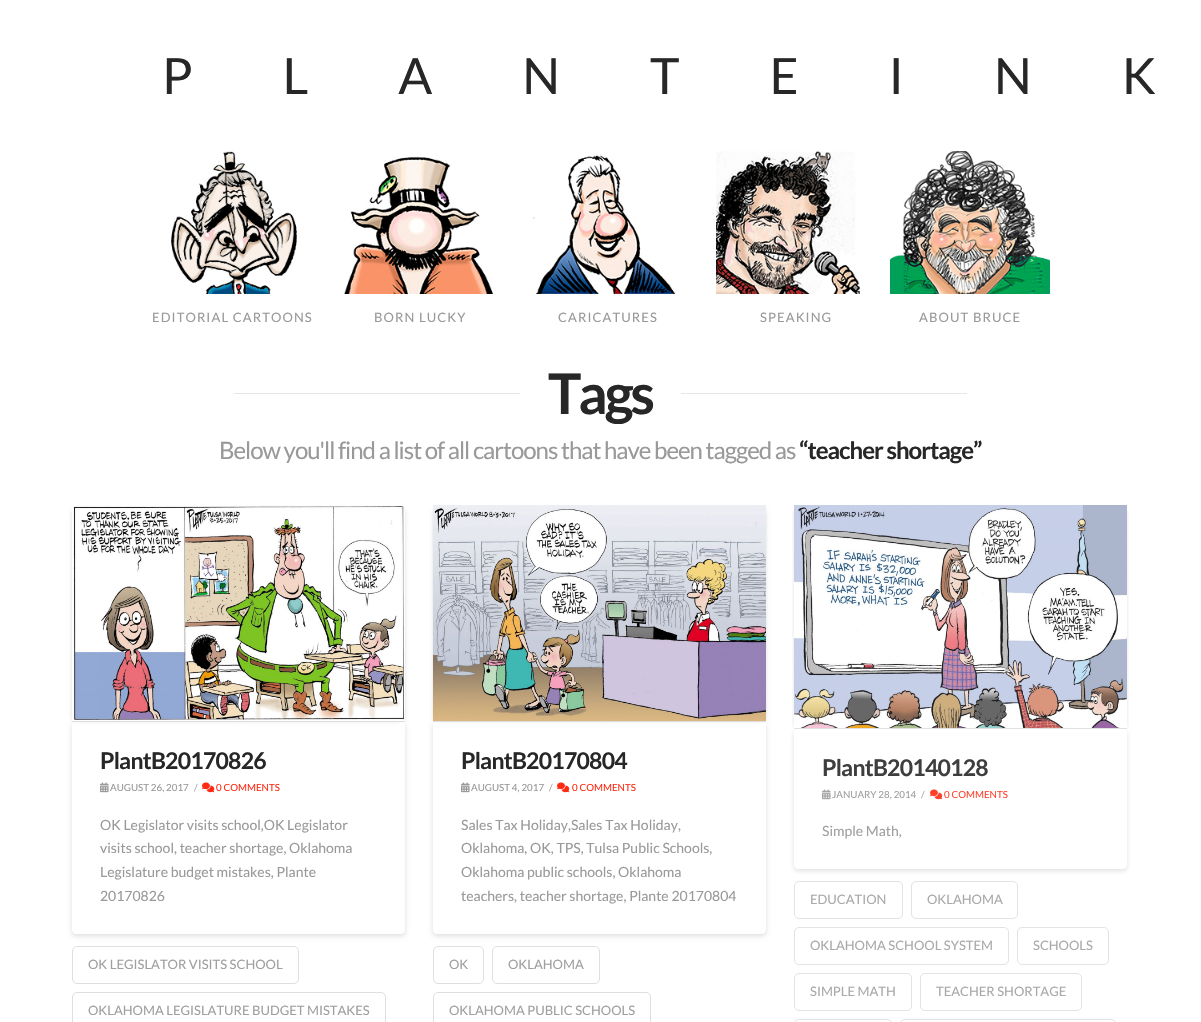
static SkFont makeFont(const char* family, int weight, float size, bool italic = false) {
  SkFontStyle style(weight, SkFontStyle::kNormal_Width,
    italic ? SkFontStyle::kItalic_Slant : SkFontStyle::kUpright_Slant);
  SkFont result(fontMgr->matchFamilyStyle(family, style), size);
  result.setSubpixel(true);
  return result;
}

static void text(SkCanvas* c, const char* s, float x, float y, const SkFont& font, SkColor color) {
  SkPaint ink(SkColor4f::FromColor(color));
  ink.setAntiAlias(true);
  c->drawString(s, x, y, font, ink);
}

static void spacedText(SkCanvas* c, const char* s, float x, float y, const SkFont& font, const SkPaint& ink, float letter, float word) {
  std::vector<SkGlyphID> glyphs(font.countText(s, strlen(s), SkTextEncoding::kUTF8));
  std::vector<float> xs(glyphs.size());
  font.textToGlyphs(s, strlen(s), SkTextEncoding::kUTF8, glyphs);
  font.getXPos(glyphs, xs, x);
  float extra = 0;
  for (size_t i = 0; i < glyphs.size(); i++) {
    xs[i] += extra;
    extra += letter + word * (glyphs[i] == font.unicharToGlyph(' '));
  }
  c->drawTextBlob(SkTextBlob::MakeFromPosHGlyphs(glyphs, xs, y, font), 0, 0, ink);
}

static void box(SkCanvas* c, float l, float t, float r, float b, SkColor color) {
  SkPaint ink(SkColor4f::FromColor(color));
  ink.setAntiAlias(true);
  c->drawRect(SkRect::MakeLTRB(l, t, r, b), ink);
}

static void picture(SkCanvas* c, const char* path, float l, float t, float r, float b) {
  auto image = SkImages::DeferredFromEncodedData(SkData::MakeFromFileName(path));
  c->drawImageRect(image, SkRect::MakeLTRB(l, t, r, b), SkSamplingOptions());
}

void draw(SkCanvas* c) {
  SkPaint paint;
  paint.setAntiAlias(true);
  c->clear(0xffffffff);
  SkFont face1 = makeFont("Lato", 400, 50);
  paint.setColor(0xff272727);
  spacedText(c, "PLANTEINK", 162, 94, face1, paint, 90, 0);
  picture(c, "img_01.png", 170, 151, 297, 294);
  SkFont face2 = makeFont("Lato", 400, 13);
  paint.setColor(0xff999999);
  spacedText(c, "EDITORIAL CARTOONS", 152, 322, face2, paint, 1.1f, 0);
  picture(c, "img_02.png", 344, 156, 494, 294);
  spacedText(c, "BORN LUCKY", 374, 322, face2, paint, 1.1f, 0);
  picture(c, "img_03.png", 533, 155, 676, 294);
  spacedText(c, "CARICATURES", 558, 322, face2, paint, 1.1f, 0);
  picture(c, "img_04.png", 716, 151, 860, 294);
  spacedText(c, "SPEAKING", 760, 322, face2, paint, 1.1f, 0);
  picture(c, "img_05.png", 890, 151, 1050, 294);
  spacedText(c, "ABOUT BRUCE", 919, 322, face2, paint, 1.1f, 0);
  box(c, 234, 393, 520, 394, 0xffe6e6e6);
  SkFont face3 = makeFont("Lato", 700, 56);
  paint.setColor(0xff272727);
  spacedText(c, "Tags", 548, 414, face3, paint, -3, 0);
  box(c, 681, 393, 967, 394, 0xffe6e6e6);
  SkFont face4 = makeFont("Lato", 400, 24);
  paint.setColor(0xff999999);
  spacedText(c, "Below you'll find a list of all cartoons that have been tagged as", 219, 459, face4, paint, -1, 0);
  SkFont face5 = makeFont("Lato", 700, 24);
  paint.setColor(0xff272727);
  spacedText(c, "“teacher shortage”", 799, 459, face5, paint, -1, 0);
  paint.setColor(0x21000000);
  paint.setMaskFilter(SkMaskFilter::MakeBlur(kNormal_SkBlurStyle, 2.5f));
  c->drawRoundRect(SkRect::MakeLTRB(72, 724, 405, 936), 4, 4, paint);
  paint.setMaskFilter(nullptr);
  paint.setColor(0xffffffff);
  c->drawPath(SkPathBuilder().moveTo(72, 722).lineTo(405, 722).lineTo(405, 930).cubicTo(405, 932, 403, 934, 401, 934).lineTo(76, 934).cubicTo(74, 934, 72, 932, 72, 930).close().detach(), paint);
  paint.setColor(0x21000000);
  paint.setMaskFilter(SkMaskFilter::MakeBlur(kNormal_SkBlurStyle, 2));
  c->drawRect(SkRect::MakeLTRB(72, 511, 397, 720), paint);
  paint.setMaskFilter(nullptr);
  paint.setMaskFilter(SkMaskFilter::MakeBlur(kNormal_SkBlurStyle, 2));
  c->drawRect(SkRect::MakeLTRB(80, 511, 405, 720), paint);
  paint.setMaskFilter(nullptr);
  box(c, 72, 721, 405, 722, 0xffdddddd);
  picture(c, "img_06.png", 72, 505, 405, 721);
  SkFont face6 = makeFont("Lato", 700, 23);
  paint.setColor(0xff272727);
  spacedText(c, "PlantB20170826", 100, 769, face6, paint, -0.75f, 0);
  picture(c, "img_07.png", 100, 782, 109, 793);
  SkFont face7 = makeFont("Lato", 400, 9.75f);
  text(c, "AUGUST 26, 2017", 110, 791, face7, 0xff999999);
  text(c, "/", 194, 791, face7, 0xff999999);
  picture(c, "img_08.png", 202, 782, 215, 793);
  text(c, "0 COMMENTS", 216, 791, face7, 0xffff2a13);
  SkFont face8 = makeFont("Lato", 400, 14);
  text(c, "OK Legislator visits school,OK Legislator", 100, 830, face8, 0xff999999);
  text(c, "visits school, teacher shortage, Oklahoma", 100, 853, face8, 0xff999999);
  text(c, "Legislature budget mistakes, Plante", 100, 877, face8, 0xff999999);
  text(c, "20170826", 100, 901, face8, 0xff999999);
  paint.setStyle(SkPaint::kStroke_Style);
  paint.setStrokeWidth(1);
  paint.setColor(0xffdfdfdf);
  c->drawRoundRect(SkRect::MakeLTRB(72.5f, 946.5f, 298.5f, 983.5f), 4.5f, 4.5f, paint);
  text(c, "OK LEGISLATOR VISITS SCHOOL", 88, 969, face2, 0xff9f9f9f);
  c->drawRoundRect(SkRect::MakeLTRB(72.5f, 992.5f, 385.5f, 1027.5f), 4.5f, 4.5f, paint);
  text(c, "OKLAHOMA LEGISLATURE BUDGET MISTAKES", 88, 1015, face2, 0xff9f9f9f);
  paint.setStyle(SkPaint::kFill_Style);
  paint.setColor(0x21000000);
  paint.setMaskFilter(SkMaskFilter::MakeBlur(kNormal_SkBlurStyle, 2.5f));
  c->drawRoundRect(SkRect::MakeLTRB(433, 724, 766, 936), 4, 4, paint);
  paint.setMaskFilter(nullptr);
  paint.setColor(0xffffffff);
  c->drawPath(SkPathBuilder().moveTo(433, 722).lineTo(766, 722).lineTo(766, 930).cubicTo(766, 932, 764, 934, 762, 934).lineTo(437, 934).cubicTo(435, 934, 433, 932, 433, 930).close().detach(), paint);
  paint.setColor(0x21000000);
  paint.setMaskFilter(SkMaskFilter::MakeBlur(kNormal_SkBlurStyle, 2));
  c->drawRect(SkRect::MakeLTRB(433, 511, 758, 720), paint);
  paint.setMaskFilter(nullptr);
  paint.setMaskFilter(SkMaskFilter::MakeBlur(kNormal_SkBlurStyle, 2));
  c->drawRect(SkRect::MakeLTRB(441, 511, 766, 720), paint);
  paint.setMaskFilter(nullptr);
  box(c, 433, 721, 766, 722, 0xffdddddd);
  picture(c, "img_09.png", 433, 505, 766, 721);
  paint.setColor(0xff272727);
  spacedText(c, "PlantB20170804", 461, 769, face6, paint, -0.75f, 0);
  picture(c, "img_07.png", 461, 782, 470, 793);
  text(c, "AUGUST 4, 2017", 471, 791, face7, 0xff999999);
  text(c, "/", 549, 791, face7, 0xff999999);
  picture(c, "img_08.png", 557, 782, 570, 793);
  text(c, "0 COMMENTS", 572, 791, face7, 0xffff2a13);
  text(c, "Sales Tax Holiday,Sales Tax Holiday,", 461, 830, face8, 0xff999999);
  text(c, "Oklahoma, OK, TPS, Tulsa Public Schools,", 461, 853, face8, 0xff999999);
  text(c, "Oklahoma public schools, Oklahoma", 461, 877, face8, 0xff999999);
  text(c, "teachers, teacher shortage, Plante 20170804", 461, 901, face8, 0xff999999);
  paint.setStyle(SkPaint::kStroke_Style);
  paint.setColor(0xffdfdfdf);
  c->drawRoundRect(SkRect::MakeLTRB(433.5f, 946.5f, 483.5f, 983.5f), 4.5f, 4.5f, paint);
  text(c, "OK", 449, 969, face2, 0xff9f9f9f);
  c->drawRoundRect(SkRect::MakeLTRB(492.5f, 946.5f, 599.5f, 983.5f), 4.5f, 4.5f, paint);
  text(c, "OKLAHOMA", 508, 969, face2, 0xff9f9f9f);
  c->drawRoundRect(SkRect::MakeLTRB(433.5f, 992.5f, 650.5f, 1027.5f), 4.5f, 4.5f, paint);
  text(c, "OKLAHOMA PUBLIC SCHOOLS", 449, 1015, face2, 0xff9f9f9f);
  paint.setStyle(SkPaint::kFill_Style);
  paint.setColor(0x211b1b1b);
  paint.setMaskFilter(SkMaskFilter::MakeBlur(kNormal_SkBlurStyle, 2.5f));
  c->drawRoundRect(SkRect::MakeLTRB(794, 731, 1127, 871), 4, 4, paint);
  paint.setMaskFilter(nullptr);
  paint.setColor(0xffffffff);
  c->drawPath(SkPathBuilder().moveTo(794, 729).lineTo(1127, 729).lineTo(1127, 865).cubicTo(1127, 867, 1125, 869, 1123, 869).lineTo(798, 869).cubicTo(796, 869, 794, 867, 794, 865).close().detach(), paint);
  c->save();
  c->clipRect(SkRect::MakeLTRB(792, 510, 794, 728));
  paint.setColor(0x211b1b1b);
  paint.setMaskFilter(SkMaskFilter::MakeBlur(kNormal_SkBlurStyle, 2));
  c->drawRect(SkRect::MakeLTRB(794, 511, 1119, 727), paint);
  paint.setMaskFilter(nullptr);
  c->restore();
  c->save();
  c->clipRect(SkRect::MakeLTRB(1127, 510, 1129, 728));
  paint.setMaskFilter(SkMaskFilter::MakeBlur(kNormal_SkBlurStyle, 2));
  c->drawRect(SkRect::MakeLTRB(802, 511, 1127, 727), paint);
  paint.setMaskFilter(nullptr);
  c->restore();
  box(c, 794, 728, 1127, 729, 0xffe1e1e1);
  picture(c, "img_10.png", 794, 505, 1127, 728);
  paint.setColor(0xff3e3e3e);
  spacedText(c, "PlantB20140128", 822, 776, face6, paint, -0.75f, 0);
  picture(c, "img_11.png", 822, 789, 831, 800);
  text(c, "JANUARY 28, 2014", 832, 798, face7, 0xff9f9f9f);
  text(c, "/", 921, 798, face7, 0xff9f9f9f);
  picture(c, "img_12.png", 930, 789, 943, 800);
  text(c, "0 COMMENTS", 944, 798, face7, 0xffff412c);
  text(c, "Simple Math,", 822, 836, face8, 0xff9f9f9f);
  paint.setStyle(SkPaint::kStroke_Style);
  paint.setColor(0xffe3e3e3);
  c->drawRoundRect(SkRect::MakeLTRB(794.5f, 881.5f, 902.5f, 918.5f), 4.5f, 4.5f, paint);
  text(c, "EDUCATION", 810, 904, face2, 0xffa9a9a9);
  c->drawRoundRect(SkRect::MakeLTRB(911.5f, 881.5f, 1017.5f, 918.5f), 4.5f, 4.5f, paint);
  text(c, "OKLAHOMA", 927, 904, face2, 0xffa9a9a9);
  c->drawRoundRect(SkRect::MakeLTRB(794.5f, 927.5f, 1008.5f, 964.5f), 4.5f, 4.5f, paint);
  text(c, "OKLAHOMA SCHOOL SYSTEM", 810, 950, face2, 0xffa9a9a9);
  c->drawRoundRect(SkRect::MakeLTRB(1017.5f, 927.5f, 1108.5f, 964.5f), 4.5f, 4.5f, paint);
  text(c, "SCHOOLS", 1033, 950, face2, 0xffa9a9a9);
  c->drawRoundRect(SkRect::MakeLTRB(794.5f, 973.5f, 911.5f, 1010.5f), 4.5f, 4.5f, paint);
  text(c, "SIMPLE MATH", 810, 996, face2, 0xffa9a9a9);
  c->drawRoundRect(SkRect::MakeLTRB(920.5f, 973.5f, 1081.5f, 1010.5f), 4.5f, 4.5f, paint);
  text(c, "TEACHER SHORTAGE", 936, 996, face2, 0xffa9a9a9);
  c->drawRoundRect(SkRect::MakeLTRB(794.5f, 1019.5f, 891.5f, 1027.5f), 4.5f, 4.5f, paint);
  c->drawRoundRect(SkRect::MakeLTRB(900.5f, 1019.5f, 1115.5f, 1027.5f), 4.5f, 4.5f, paint);
}
